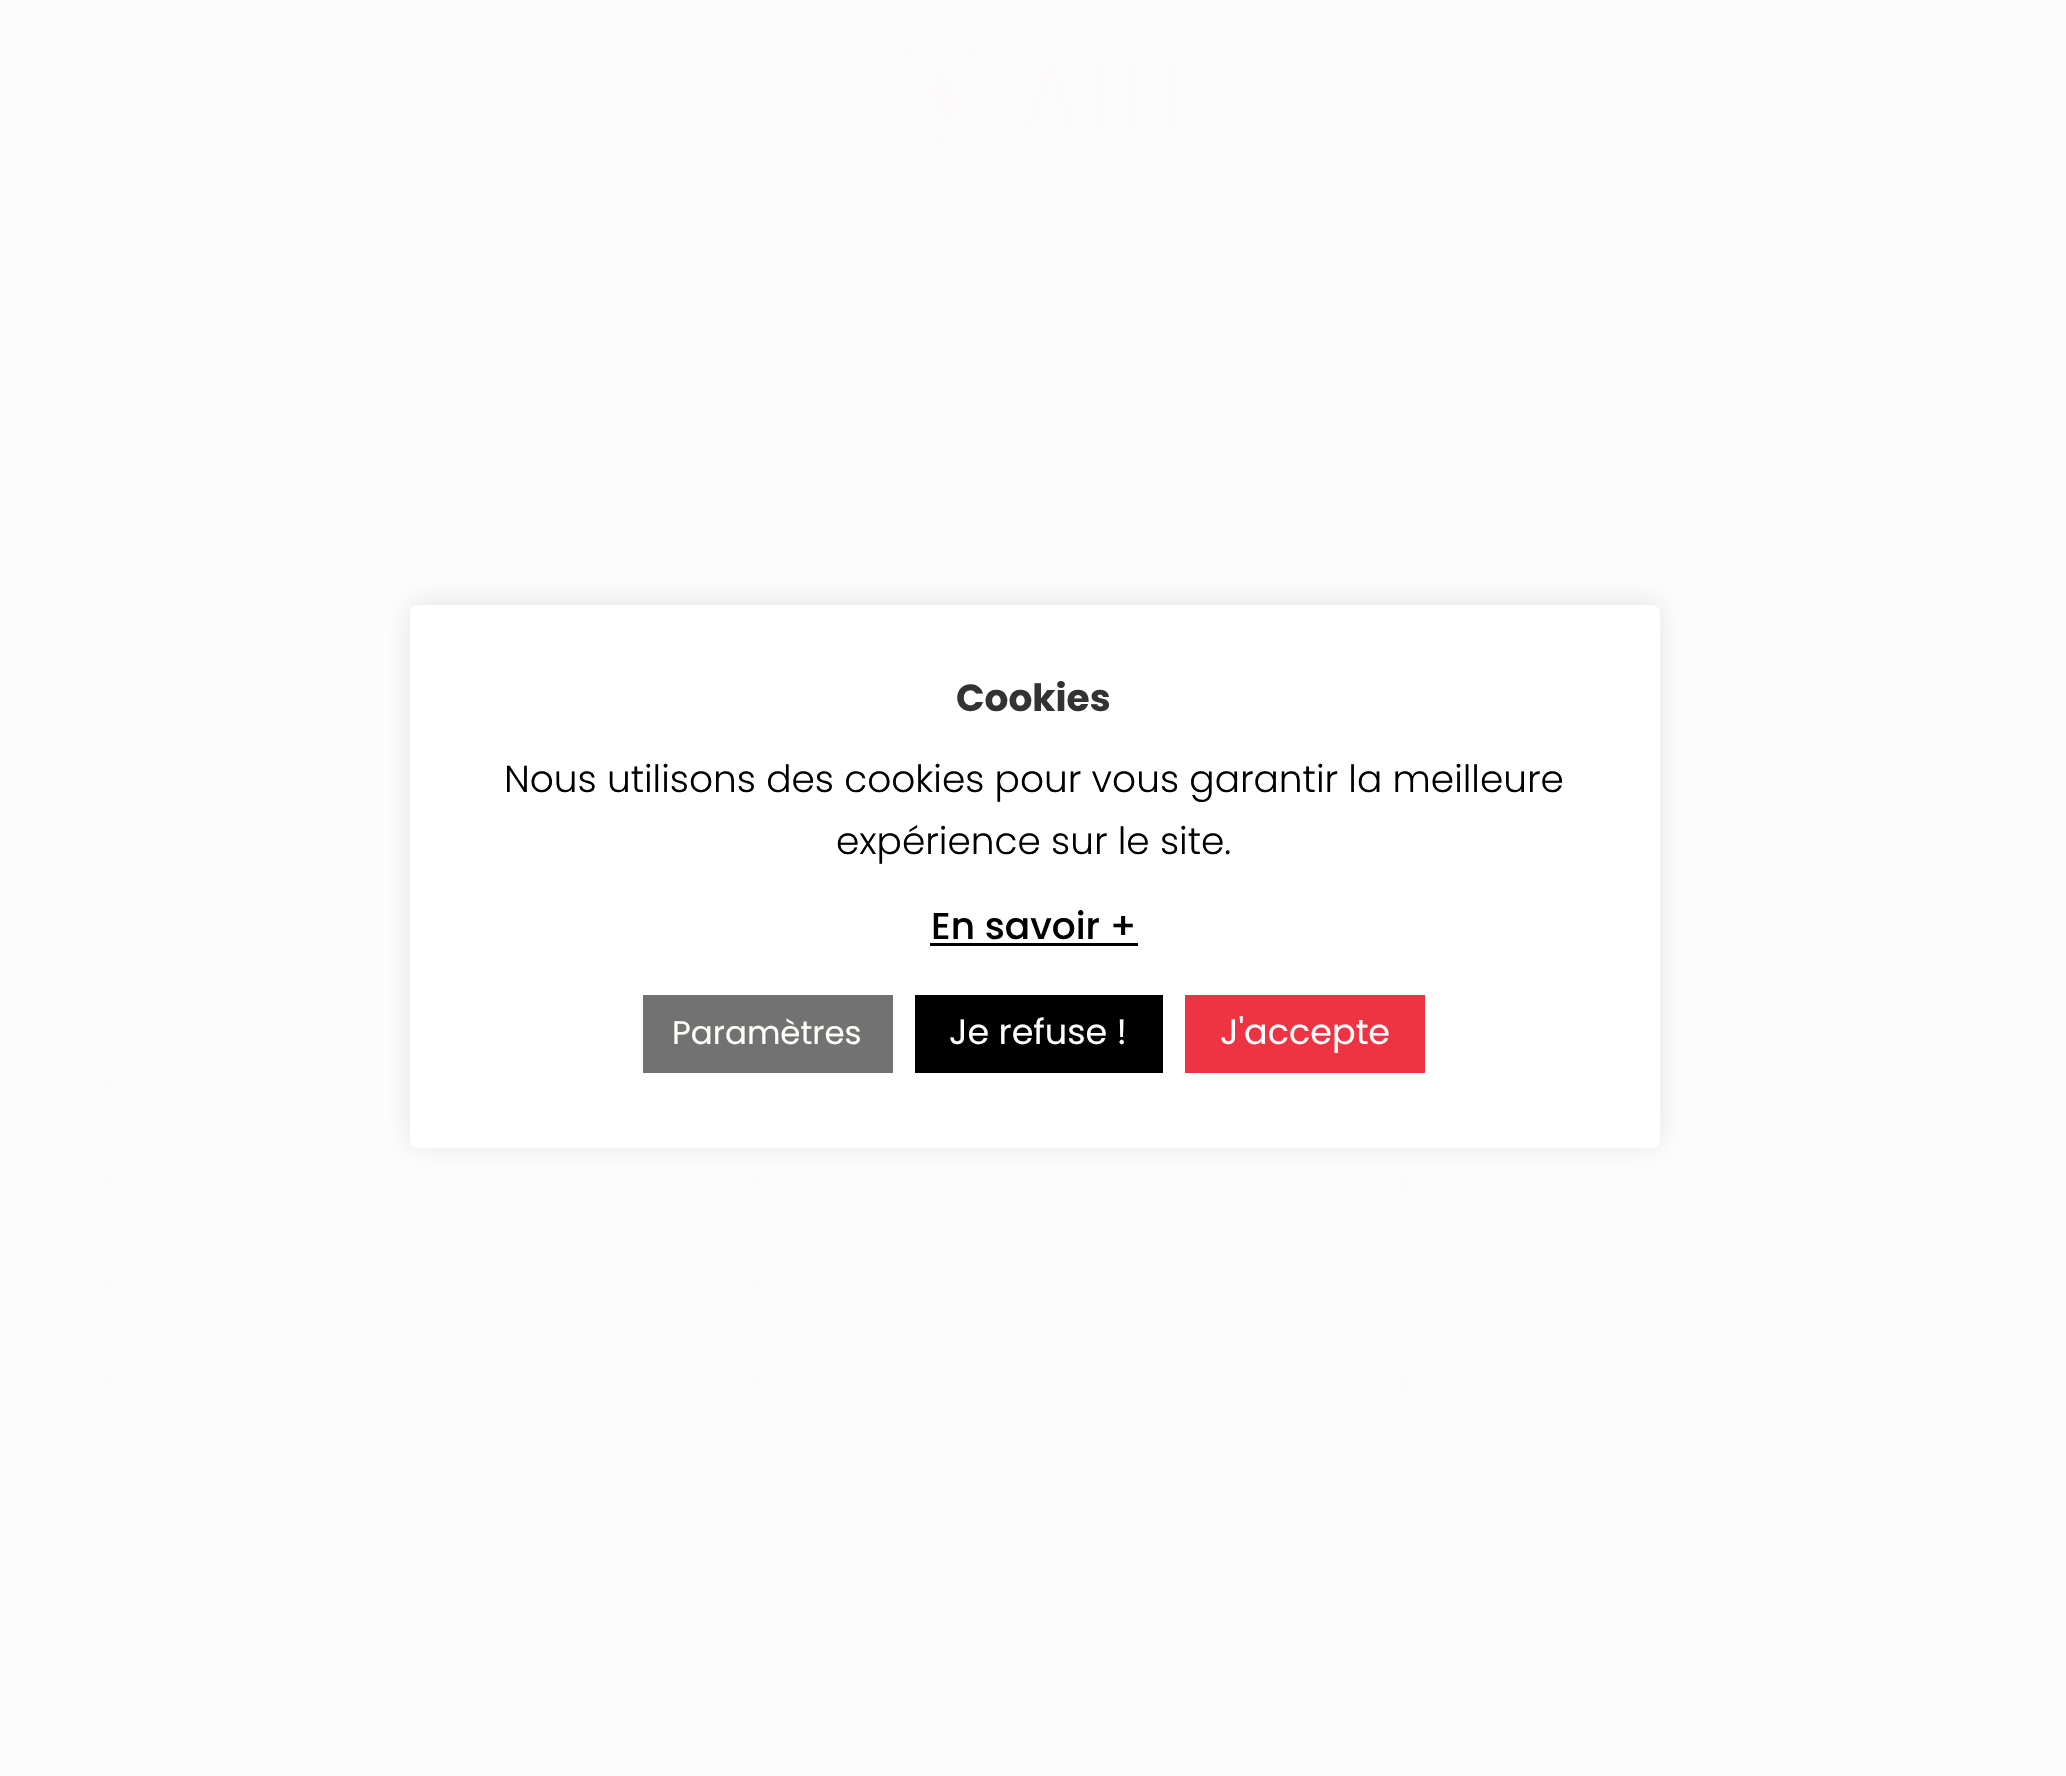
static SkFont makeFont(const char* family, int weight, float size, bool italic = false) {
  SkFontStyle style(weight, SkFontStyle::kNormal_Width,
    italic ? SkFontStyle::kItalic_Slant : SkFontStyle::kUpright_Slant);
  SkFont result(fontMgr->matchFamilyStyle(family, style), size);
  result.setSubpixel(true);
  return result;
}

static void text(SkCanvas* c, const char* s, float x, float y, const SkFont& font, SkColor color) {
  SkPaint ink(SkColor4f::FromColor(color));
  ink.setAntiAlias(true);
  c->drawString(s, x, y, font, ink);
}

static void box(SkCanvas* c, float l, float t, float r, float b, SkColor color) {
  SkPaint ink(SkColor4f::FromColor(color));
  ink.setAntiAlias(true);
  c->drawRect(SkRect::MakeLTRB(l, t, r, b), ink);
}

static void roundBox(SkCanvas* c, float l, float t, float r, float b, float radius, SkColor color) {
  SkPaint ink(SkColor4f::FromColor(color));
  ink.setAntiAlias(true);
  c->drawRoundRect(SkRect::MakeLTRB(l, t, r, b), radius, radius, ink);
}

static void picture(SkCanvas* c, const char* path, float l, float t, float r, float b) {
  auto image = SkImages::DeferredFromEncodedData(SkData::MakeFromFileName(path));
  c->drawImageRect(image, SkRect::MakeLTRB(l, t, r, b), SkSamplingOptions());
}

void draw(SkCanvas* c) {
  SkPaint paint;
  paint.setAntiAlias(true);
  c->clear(0xfffcfcfc);
  picture(c, "img_01.png", 405, 76, 456, 113);
  picture(c, "img_02.png", 887, 37, 1180, 150);
  picture(c, "img_03.png", 1957, 663, 2004, 711);
  picture(c, "img_04.png", 100, 1071, 113, 1094);
  picture(c, "img_04.png", 100, 1171, 113, 1194);
  picture(c, "img_04.png", 100, 1271, 113, 1294);
  picture(c, "img_04.png", 100, 1371, 113, 1394);
  picture(c, "img_05.png", 747, 1171, 761, 1194);
  picture(c, "img_05.png", 747, 1271, 761, 1294);
  picture(c, "img_05.png", 747, 1371, 761, 1394);
  picture(c, "img_05.png", 1397, 1171, 1411, 1194);
  picture(c, "img_05.png", 1397, 1271, 1411, 1294);
  picture(c, "img_05.png", 1397, 1371, 1411, 1394);
  paint.setColor(0x4dacabab);
  paint.setMaskFilter(SkMaskFilter::MakeBlur(kNormal_SkBlurStyle, 12.5f));
  c->drawRoundRect(SkRect::MakeLTRB(410, 603, 1660, 1145), 8, 8, paint);
  paint.setMaskFilter(nullptr);
  roundBox(c, 410, 605, 1660, 1148, 8, 0xffffffff);
  SkFont face1 = makeFont("Poppins", 700, 37.5f);
  text(c, "Cookies", 956, 711, face1, 0xff333333);
  SkFont face2 = makeFont("Poppins", 300, 37.5f);
  text(c, "Nous utilisons des cookies pour vous garantir la meilleure", 504, 792, face2, 0xff000000);
  text(c, "expérience sur le site.", 836, 854, face2, 0xff000000);
  SkFont face3 = makeFont("Poppins", 500, 37.5f);
  text(c, "En savoir +", 931, 939, face3, 0xff000000);
  box(c, 930, 943, 1138, 946, 0xff000000);
  box(c, 643, 995, 893, 1073, 0xff727272);
  SkFont face4 = makeFont("Poppins", 400, 32.5f);
  text(c, "Paramètres", 672, 1044, face4, 0xfffffef9);
  box(c, 915, 995, 1163, 1073, 0xff000000);
  SkFont face5 = makeFont("Poppins", 400, 35);
  text(c, "Je refuse !", 949, 1044, face5, 0xffffffff);
  box(c, 1185, 995, 1425, 1073, 0xffee3343);
  text(c, "J'accepte", 1220, 1044, face5, 0xffffffff);
}
